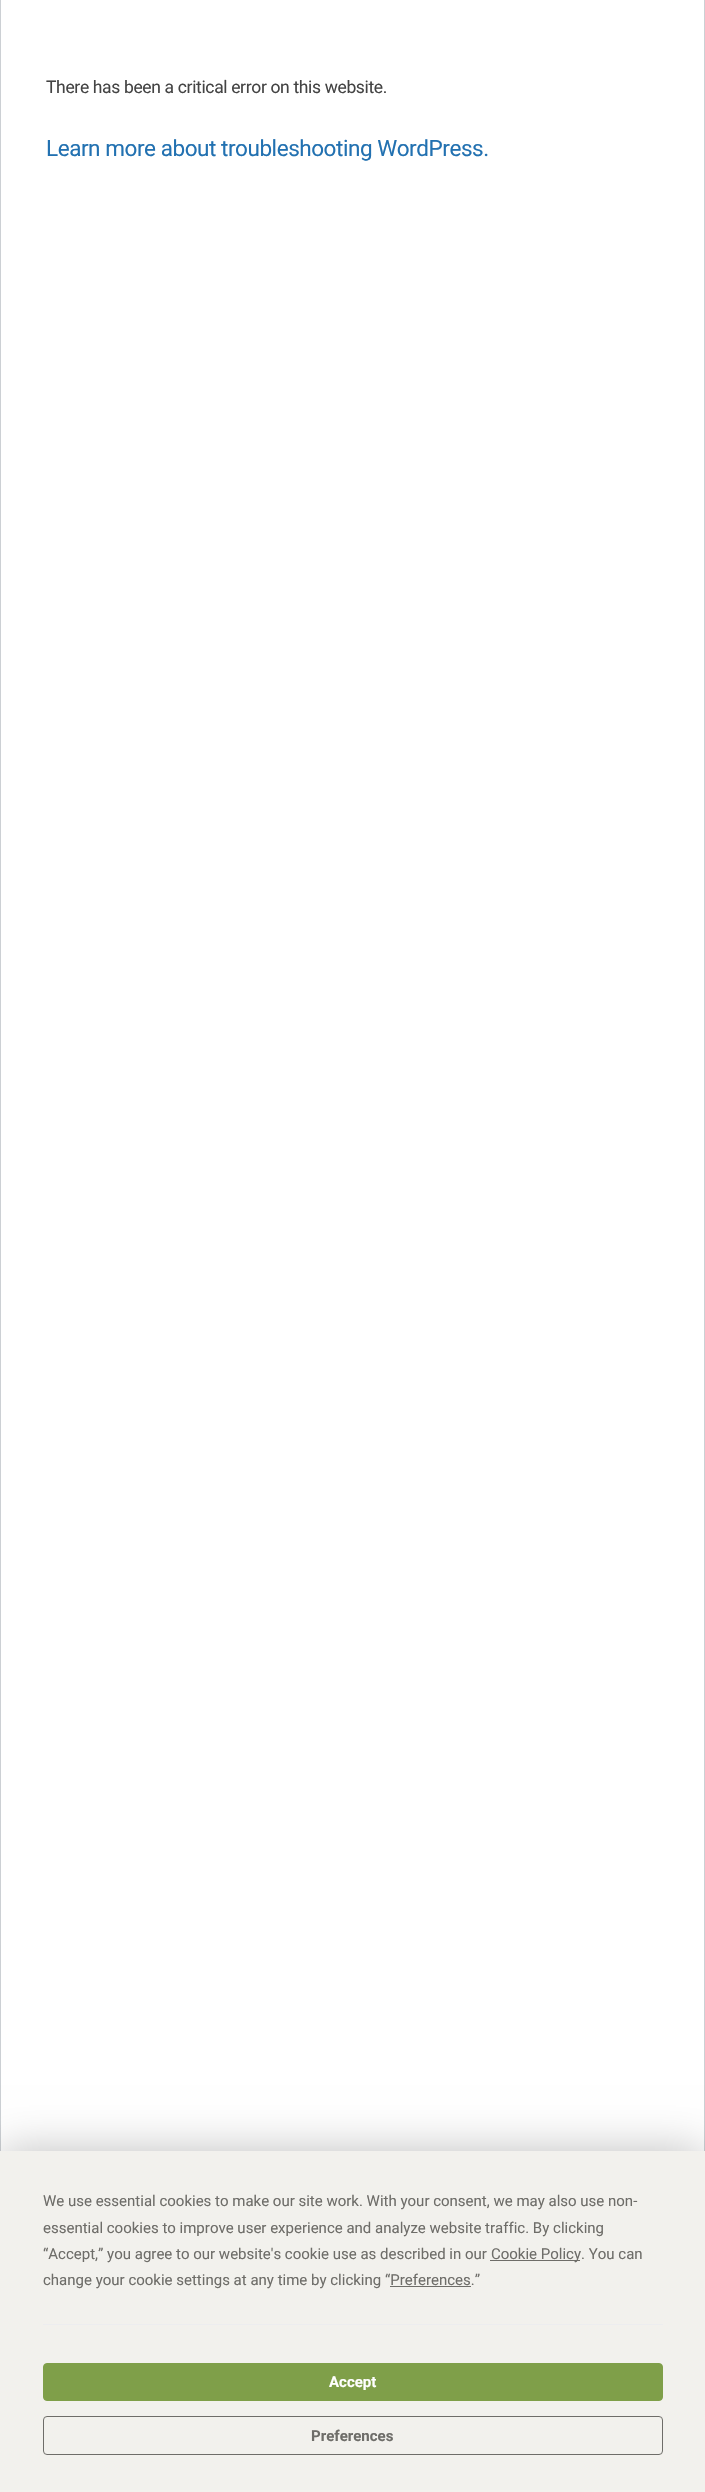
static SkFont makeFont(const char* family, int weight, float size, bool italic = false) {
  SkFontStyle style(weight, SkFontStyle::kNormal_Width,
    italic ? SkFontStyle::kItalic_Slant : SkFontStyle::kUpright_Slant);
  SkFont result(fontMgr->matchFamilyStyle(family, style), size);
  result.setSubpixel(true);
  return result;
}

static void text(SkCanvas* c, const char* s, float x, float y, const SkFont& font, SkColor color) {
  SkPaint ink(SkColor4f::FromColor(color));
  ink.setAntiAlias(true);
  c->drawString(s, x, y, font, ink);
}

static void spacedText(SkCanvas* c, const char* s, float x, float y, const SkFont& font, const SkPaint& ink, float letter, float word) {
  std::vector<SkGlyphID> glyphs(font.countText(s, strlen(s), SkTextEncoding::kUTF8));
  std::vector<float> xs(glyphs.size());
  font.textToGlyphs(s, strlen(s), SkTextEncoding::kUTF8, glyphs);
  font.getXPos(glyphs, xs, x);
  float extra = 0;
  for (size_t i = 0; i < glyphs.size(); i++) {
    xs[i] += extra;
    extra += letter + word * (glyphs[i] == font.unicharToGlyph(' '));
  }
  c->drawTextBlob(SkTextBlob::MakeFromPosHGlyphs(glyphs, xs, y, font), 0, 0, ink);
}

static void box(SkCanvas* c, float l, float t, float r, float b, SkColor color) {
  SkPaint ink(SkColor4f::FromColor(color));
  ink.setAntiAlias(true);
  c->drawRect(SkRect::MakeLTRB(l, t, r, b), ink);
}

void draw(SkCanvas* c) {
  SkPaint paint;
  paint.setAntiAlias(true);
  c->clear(0xffffffff);
  paint.setStyle(SkPaint::kStroke_Style);
  paint.setStrokeWidth(1);
  paint.setColor(0xffccd0d4);
  c->drawRect(SkRect::MakeLTRB(0.5f, -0.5f, 704.5f, 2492.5f), paint);
  SkFont face1 = makeFont("Roboto", 400, 17.5f);
  paint.setStyle(SkPaint::kFill_Style);
  paint.setColor(0xff444444);
  spacedText(c, "There has been a critical error on this website.", 46, 93, face1, paint, -0.35f, 0);
  SkFont face2 = makeFont("Roboto", 400, 22.5f);
  paint.setColor(0xff2271b1);
  spacedText(c, "Learn more about troubleshooting WordPress.", 46, 156, face2, paint, -0.45f, 0);
  paint.setColor(0x40000000);
  paint.setMaskFilter(SkMaskFilter::MakeBlur(kNormal_SkBlurStyle, 22));
  c->drawRect(SkRect::MakeLTRB(0, 2151, 705, 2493), paint);
  paint.setMaskFilter(nullptr);
  box(c, 0, 2151, 705, 2492, 0xfff2f1ed);
  SkFont face3 = makeFont("Roboto", 400, 15);
  text(c, "We use essential cookies to make our site work. With your consent, we may also use non-", 43, 2206, face3, 0xff6e6d69);
  text(c, "essential cookies to improve user experience and analyze website traffic. By clicking", 43, 2233, face3, 0xff6e6d69);
  text(c, "“Accept,” you agree to our website's cookie use as described in our", 43, 2259, face3, 0xff6e6d69);
  box(c, 490, 2260, 580, 2261, 0xff6e6d69);
  text(c, "Cookie Policy. You can", 491, 2259, face3, 0xff6e6d69);
  text(c, "change your cookie settings at any time by clicking “Preferences.”", 43, 2285, face3, 0xff6e6d69);
  box(c, 390, 2286, 471, 2287, 0xff6e6d69);
  box(c, 43, 2324, 663, 2325, 0xffededef);
  paint.setColor(0xff7f9f49);
  c->drawRoundRect(SkRect::MakeLTRB(43.5f, 2363.5f, 662.5f, 2400.5f), 3.5f, 3.5f, paint);
  paint.setStyle(SkPaint::kStroke_Style);
  c->drawRoundRect(SkRect::MakeLTRB(43.5f, 2363.5f, 662.5f, 2400.5f), 3.5f, 3.5f, paint);
  SkFont face4 = makeFont("Roboto", 700, 15);
  text(c, "Accept", 329, 2387, face4, 0xffffffff);
  paint.setColor(0xff6e6d69);
  c->drawRoundRect(SkRect::MakeLTRB(43.5f, 2416.5f, 662.5f, 2454.5f), 3.5f, 3.5f, paint);
  text(c, "Preferences", 311, 2441, face4, 0xff6e6d69);
}
